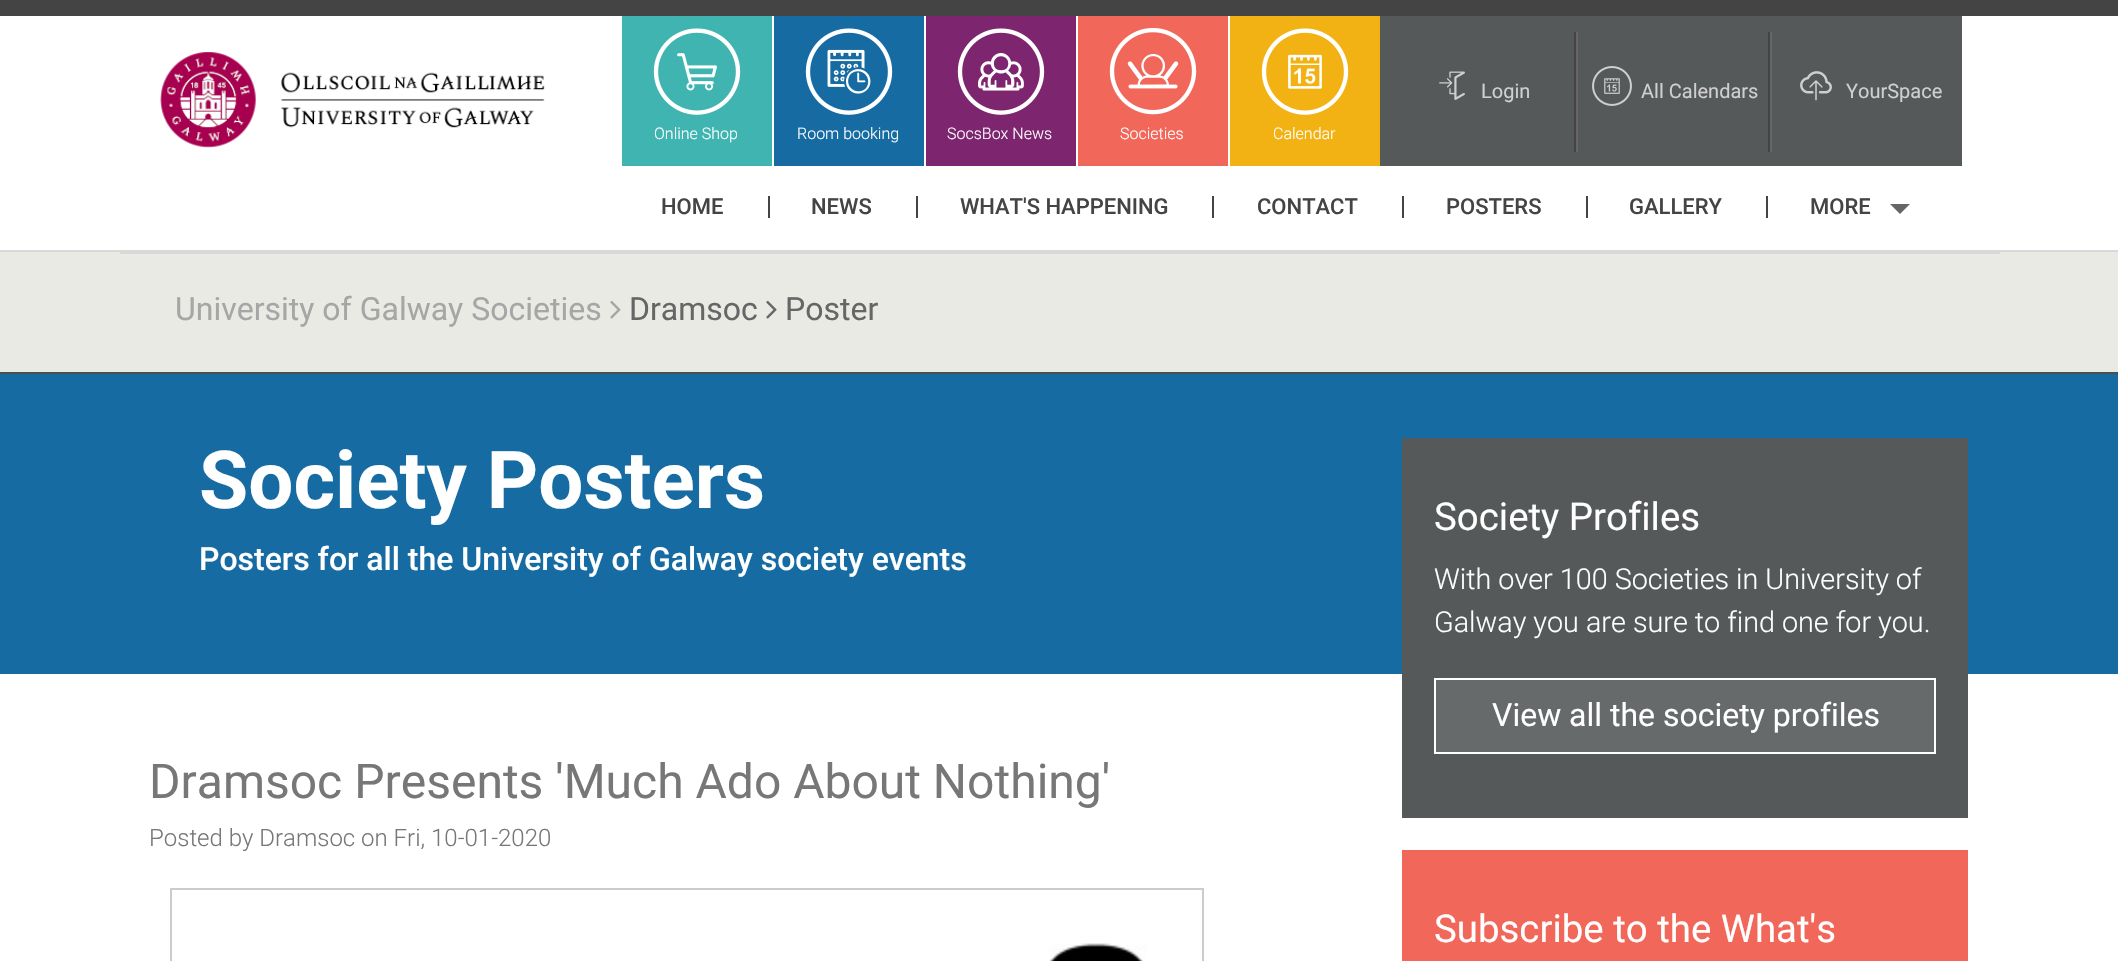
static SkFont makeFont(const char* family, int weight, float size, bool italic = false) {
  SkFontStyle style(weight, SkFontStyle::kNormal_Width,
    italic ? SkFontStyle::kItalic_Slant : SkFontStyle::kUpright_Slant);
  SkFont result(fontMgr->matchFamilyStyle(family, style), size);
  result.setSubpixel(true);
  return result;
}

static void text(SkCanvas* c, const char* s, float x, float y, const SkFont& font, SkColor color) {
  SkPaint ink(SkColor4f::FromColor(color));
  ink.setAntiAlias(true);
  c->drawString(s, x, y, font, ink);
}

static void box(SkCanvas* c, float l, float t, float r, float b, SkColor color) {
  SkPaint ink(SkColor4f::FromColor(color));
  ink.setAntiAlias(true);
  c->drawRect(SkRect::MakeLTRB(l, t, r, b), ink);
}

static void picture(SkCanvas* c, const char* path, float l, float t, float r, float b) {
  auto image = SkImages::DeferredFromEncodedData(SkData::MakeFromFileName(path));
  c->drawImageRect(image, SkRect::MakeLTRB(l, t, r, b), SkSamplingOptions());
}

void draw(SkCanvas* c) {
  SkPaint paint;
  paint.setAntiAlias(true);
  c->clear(0xffffffff);
  box(c, 0, 0, 2118, 16, 0xff444444);
  picture(c, "img_01.png", 160, 51, 545, 148);
  box(c, 1380, 16, 1962, 166, 0xff565959);
  picture(c, "img_02.png", 1439, 71, 1465, 100);
  SkFont face1 = makeFont("Roboto", 400, 20);
  text(c, "Login", 1481, 98, face1, 0xffcfcfcf);
  box(c, 1576, 32, 1578, 152, 0xff666666);
  box(c, 1574, 32, 1576, 152, 0xff444444);
  picture(c, "img_03.png", 1592, 66, 1632, 106);
  text(c, "All Calendars", 1641, 98, face1, 0xffcfcfcf);
  box(c, 1770, 32, 1772, 152, 0xff666666);
  box(c, 1768, 32, 1770, 152, 0xff444444);
  picture(c, "img_04.png", 1800, 71, 1832, 101);
  text(c, "YourSpace", 1846, 98, face1, 0xffcfcfcf);
  box(c, 622, 16, 772, 166, 0xff40b4b0);
  picture(c, "img_05.png", 653, 28, 741, 115);
  SkFont face2 = makeFont("Roboto", 300, 16);
  text(c, "Online Shop", 654, 139, face2, 0xffffffff);
  box(c, 774, 16, 924, 166, 0xff166ba2);
  picture(c, "img_06.png", 805, 28, 893, 115);
  text(c, "Room booking", 797, 139, face2, 0xffffffff);
  box(c, 926, 16, 1076, 166, 0xff7d256f);
  picture(c, "img_07.png", 957, 28, 1045, 115);
  text(c, "SocsBox News", 947, 139, face2, 0xffffffff);
  box(c, 1078, 16, 1228, 166, 0xfff1675a);
  picture(c, "img_08.png", 1109, 28, 1197, 115);
  text(c, "Societies", 1120, 139, face2, 0xffffffff);
  box(c, 1230, 16, 1380, 166, 0xfff2b214);
  picture(c, "img_09.png", 1261, 28, 1349, 115);
  text(c, "Calendar", 1273, 139, face2, 0xffffffff);
  box(c, 768, 196, 770, 218, 0xff444444);
  SkFont face3 = makeFont("Roboto", 500, 22);
  text(c, "HOME", 661, 214, face3, 0xff444444);
  box(c, 916, 196, 918, 218, 0xff444444);
  text(c, "NEWS", 811, 214, face3, 0xff444444);
  box(c, 1212, 196, 1214, 218, 0xff444444);
  text(c, "WHAT'S HAPPENING", 960, 214, face3, 0xff444444);
  box(c, 1402, 196, 1404, 218, 0xff444444);
  text(c, "CONTACT", 1257, 214, face3, 0xff444444);
  box(c, 1586, 196, 1588, 218, 0xff444444);
  text(c, "POSTERS", 1446, 214, face3, 0xff444444);
  box(c, 1766, 196, 1768, 218, 0xff444444);
  text(c, "GALLERY", 1629, 214, face3, 0xff444444);
  text(c, "MORE", 1810, 214, face3, 0xff444444);
  paint.setColor(0xff666666);
  c->drawPath(SkPathBuilder().moveTo(1890, 204).lineTo(1910, 204).lineTo(1900, 214).close().detach(), paint);
  box(c, 0, 252, 2118, 372, 0xffe9eae4);
  box(c, 0, 250, 2118, 252, 0xffd9d9d9);
  box(c, 120, 252, 2000, 254, 0xffd9d9d9);
  SkFont face4 = makeFont("Roboto", 400, 32);
  text(c, "University of Galway Societies", 175, 320, face4, 0xffa6a6a6);
  picture(c, "img_10.png", 610, 300, 621, 319);
  text(c, "Dramsoc", 629, 320, face4, 0xff666666);
  picture(c, "img_11.png", 766, 300, 777, 319);
  text(c, "Poster", 785, 320, face4, 0xff666666);
  box(c, 0, 374, 2118, 674, 0xff166ba2);
  box(c, 0, 372, 2118, 374, 0xff4e4e50);
  SkFont face5 = makeFont("Roboto", 700, 80);
  text(c, "Society Posters", 199, 508, face5, 0xffffffff);
  SkFont face6 = makeFont("Roboto", 500, 32);
  text(c, "Posters for all the University of Galway society events", 199, 570, face6, 0xffffffff);
  box(c, 1402, 438, 1968, 818, 0xff565959);
  SkFont face7 = makeFont("Roboto", 400, 38.4f);
  text(c, "Society Profiles", 1434, 530, face7, 0xffffffff);
  SkFont face8 = makeFont("Roboto", 300, 28.75f);
  text(c, "With over 100 Societies in University of", 1434, 589, face8, 0xffffffff);
  text(c, "Galway you are sure to find one for you.", 1434, 632, face8, 0xffffffff);
  paint.setColor(0xff676a6a);
  c->drawRect(SkRect::MakeLTRB(1435, 679, 1935, 753), paint);
  paint.setStyle(SkPaint::kStroke_Style);
  paint.setStrokeWidth(2);
  paint.setColor(0xffffffff);
  c->drawRect(SkRect::MakeLTRB(1435, 679, 1935, 753), paint);
  text(c, "View all the society profiles", 1492, 726, face4, 0xffffffff);
  SkFont face9 = makeFont("Roboto", 400, 48);
  text(c, "Dramsoc Presents 'Much Ado About Nothing'", 149, 798, face9, 0xff777777);
  SkFont face10 = makeFont("Roboto", 300, 24);
  text(c, "Posted by Dramsoc on Fri, 10-01-2020", 149, 846, face10, 0xff777777);
  paint.setColor(0xffcccccc);
  c->drawRect(SkRect::MakeLTRB(171, 889, 1203, 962), paint);
  picture(c, "img_12.png", 1049, 943, 1147, 961);
  box(c, 1402, 850, 1968, 961, 0xfff1675a);
  text(c, "Subscribe to the What's", 1434, 942, face7, 0xffffffff);
}
